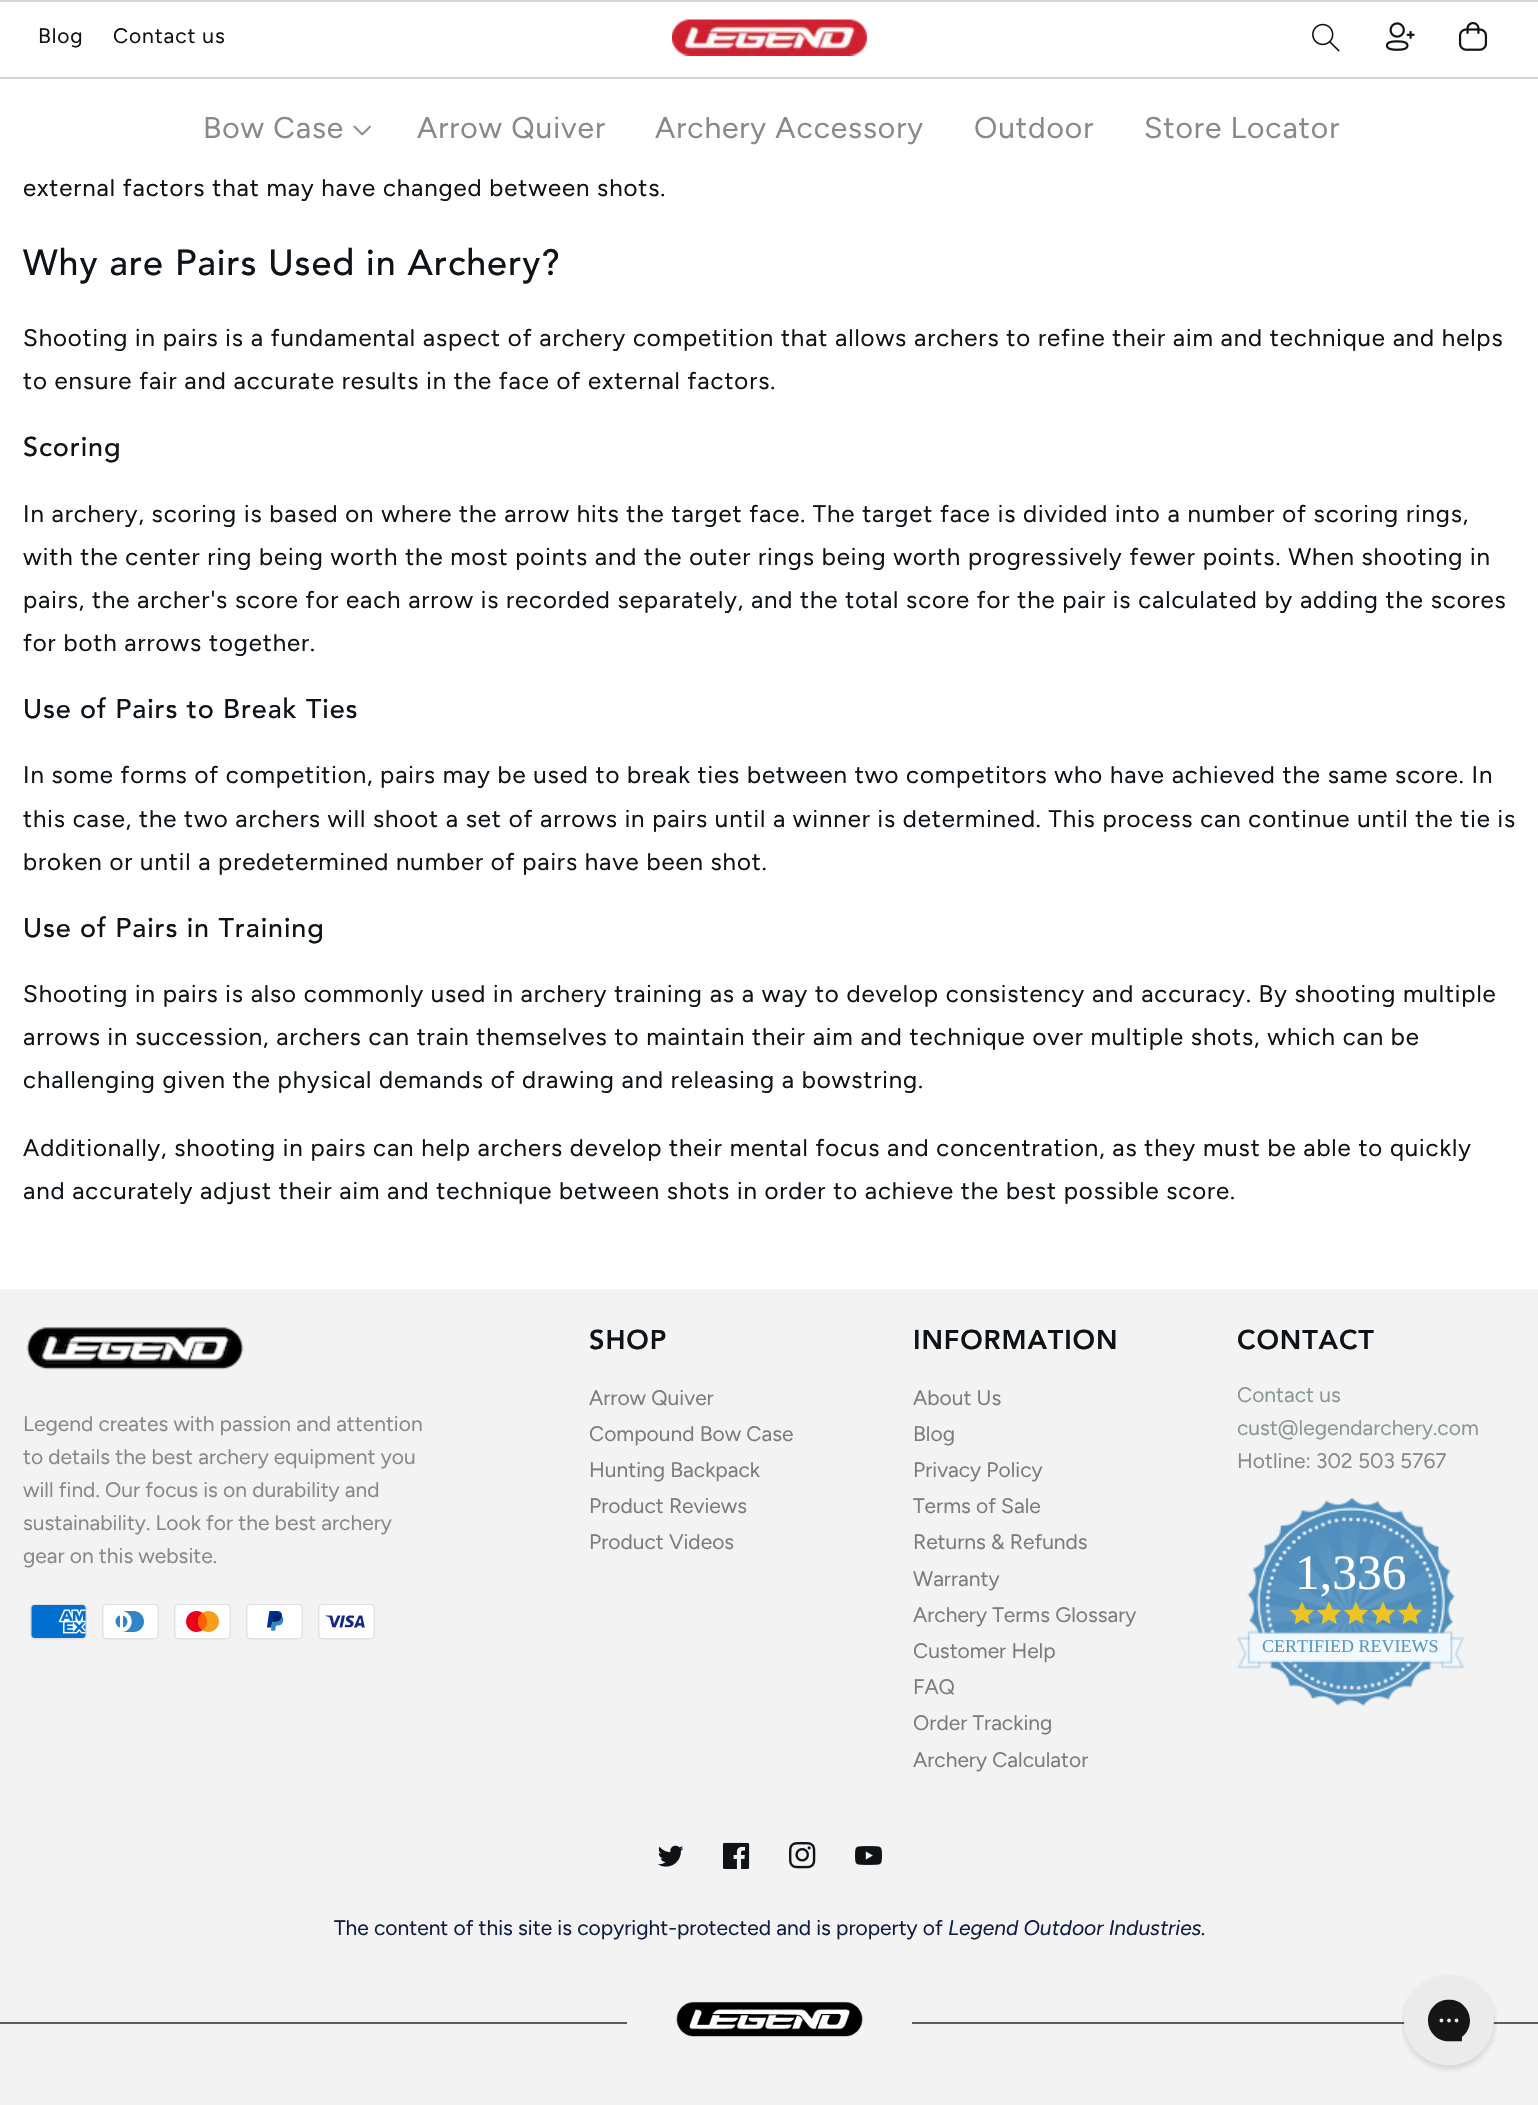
static SkFont makeFont(const char* family, int weight, float size, bool italic = false) {
  SkFontStyle style(weight, SkFontStyle::kNormal_Width,
    italic ? SkFontStyle::kItalic_Slant : SkFontStyle::kUpright_Slant);
  SkFont result(fontMgr->matchFamilyStyle(family, style), size);
  result.setSubpixel(true);
  return result;
}

static void text(SkCanvas* c, const char* s, float x, float y, const SkFont& font, SkColor color) {
  SkPaint ink(SkColor4f::FromColor(color));
  ink.setAntiAlias(true);
  c->drawString(s, x, y, font, ink);
}

static void spacedText(SkCanvas* c, const char* s, float x, float y, const SkFont& font, const SkPaint& ink, float letter, float word) {
  std::vector<SkGlyphID> glyphs(font.countText(s, strlen(s), SkTextEncoding::kUTF8));
  std::vector<float> xs(glyphs.size());
  font.textToGlyphs(s, strlen(s), SkTextEncoding::kUTF8, glyphs);
  font.getXPos(glyphs, xs, x);
  float extra = 0;
  for (size_t i = 0; i < glyphs.size(); i++) {
    xs[i] += extra;
    extra += letter + word * (glyphs[i] == font.unicharToGlyph(' '));
  }
  c->drawTextBlob(SkTextBlob::MakeFromPosHGlyphs(glyphs, xs, y, font), 0, 0, ink);
}

static void box(SkCanvas* c, float l, float t, float r, float b, SkColor color) {
  SkPaint ink(SkColor4f::FromColor(color));
  ink.setAntiAlias(true);
  c->drawRect(SkRect::MakeLTRB(l, t, r, b), ink);
}

static void picture(SkCanvas* c, const char* path, float l, float t, float r, float b) {
  auto image = SkImages::DeferredFromEncodedData(SkData::MakeFromFileName(path));
  c->drawImageRect(image, SkRect::MakeLTRB(l, t, r, b), SkSamplingOptions());
}

void draw(SkCanvas* c) {
  SkPaint paint;
  paint.setAntiAlias(true);
  c->clear(0xffffffff);
  box(c, 0, 0, 1538, 2, 0xffd2d2d2);
  SkFont face1 = makeFont("Figtree", 400, 21);
  paint.setColor(0xff0d1317);
  spacedText(c, "Blog", 38, 43, face1, paint, 0.9f, 0);
  spacedText(c, "Contact us", 113, 43, face1, paint, 0.9f, 0);
  picture(c, "img_01.png", 672, 19, 867, 56);
  picture(c, "img_02.png", 1312, 23, 1340, 52);
  picture(c, "img_03.png", 1385, 22, 1415, 51);
  picture(c, "img_04.png", 1458, 22, 1488, 51);
  box(c, 0, 77, 1538, 79, 0xffd2d2d2);
  SkFont face2 = makeFont("Figtree", 400, 30);
  paint.setColor(0xff898989);
  spacedText(c, "Bow Case", 203, 138, face2, paint, 0.9f, 0);
  picture(c, "img_05.png", 353, 125, 371, 136);
  spacedText(c, "Arrow Quiver", 417, 138, face2, paint, 0.9f, 0);
  spacedText(c, "Archery Accessory", 655, 138, face2, paint, 0.9f, 0);
  spacedText(c, "Outdoor", 974, 138, face2, paint, 0.9f, 0);
  spacedText(c, "Store Locator", 1144, 138, face2, paint, 0.9f, 0);
  SkFont face3 = makeFont("Figtree", 400, 24);
  paint.setColor(0xff0d1317);
  spacedText(c, "external factors that may have changed between shots.", 23, 196, face3, paint, 0.9f, 0);
  SkFont face4 = makeFont("Avenir", 500, 36);
  spacedText(c, "Why are Pairs Used in Archery?", 23, 275, face4, paint, 0.9f, 0);
  spacedText(c, "Shooting in pairs is a fundamental aspect of archery competition that allows archers to refine their aim and technique and helps", 23, 346, face3, paint, 0.9f, 0);
  spacedText(c, "to ensure fair and accurate results in the face of external factors.", 23, 389, face3, paint, 0.9f, 0);
  SkFont face5 = makeFont("Avenir", 500, 27);
  spacedText(c, "Scoring", 23, 456, face5, paint, 0.9f, 0);
  spacedText(c, "In archery, scoring is based on where the arrow hits the target face. The target face is divided into a number of scoring rings,", 23, 522, face3, paint, 0.9f, 0);
  spacedText(c, "with the center ring being worth the most points and the outer rings being worth progressively fewer points. When shooting in", 23, 565, face3, paint, 0.9f, 0);
  spacedText(c, "pairs, the archer's score for each arrow is recorded separately, and the total score for the pair is calculated by adding the scores", 23, 608, face3, paint, 0.9f, 0);
  spacedText(c, "for both arrows together.", 23, 651, face3, paint, 0.9f, 0);
  spacedText(c, "Use of Pairs to Break Ties", 23, 718, face5, paint, 0.9f, 0);
  spacedText(c, "In some forms of competition, pairs may be used to break ties between two competitors who have achieved the same score. In", 23, 783, face3, paint, 0.9f, 0);
  spacedText(c, "this case, the two archers will shoot a set of arrows in pairs until a winner is determined. This process can continue until the tie is", 23, 827, face3, paint, 0.9f, 0);
  spacedText(c, "broken or until a predetermined number of pairs have been shot.", 23, 870, face3, paint, 0.9f, 0);
  spacedText(c, "Use of Pairs in Training", 23, 937, face5, paint, 0.9f, 0);
  spacedText(c, "Shooting in pairs is also commonly used in archery training as a way to develop consistency and accuracy. By shooting multiple", 23, 1002, face3, paint, 0.9f, 0);
  spacedText(c, "arrows in succession, archers can train themselves to maintain their aim and technique over multiple shots, which can be", 23, 1045, face3, paint, 0.9f, 0);
  spacedText(c, "challenging given the physical demands of drawing and releasing a bowstring.", 23, 1088, face3, paint, 0.9f, 0);
  spacedText(c, "Additionally, shooting in pairs can help archers develop their mental focus and concentration, as they must be able to quickly", 23, 1156, face3, paint, 0.9f, 0);
  spacedText(c, "and accurately adjust their aim and technique between shots in order to achieve the best possible score.", 23, 1199, face3, paint, 0.9f, 0);
  box(c, 0, 1289, 1538, 2105, 0xfff3f3f3);
  picture(c, "img_06.png", 26, 1327, 244, 1370);
  text(c, "Legend creates with passion and attention", 23, 1431, face1, 0xff898989);
  text(c, "to details the best archery equipment you", 23, 1464, face1, 0xff898989);
  text(c, "will find. Our focus is on durability and", 23, 1497, face1, 0xff898989);
  text(c, "sustainability. Look for the best archery", 23, 1530, face1, 0xff898989);
  text(c, "gear on this website.", 23, 1563, face1, 0xff898989);
  picture(c, "img_07.png", 30, 1604, 87, 1640);
  picture(c, "img_08.png", 102, 1604, 159, 1640);
  picture(c, "img_09.png", 174, 1604, 231, 1640);
  picture(c, "img_10.png", 246, 1604, 303, 1640);
  picture(c, "img_11.png", 318, 1604, 375, 1640);
  SkFont face6 = makeFont("Avenir", 900, 27);
  spacedText(c, "SHOP", 589, 1349, face6, paint, 0.9f, 0);
  text(c, "Arrow Quiver", 589, 1405, face1, 0xff7a7d80);
  text(c, "Compound Bow Case", 589, 1441, face1, 0xff7a7d80);
  text(c, "Hunting Backpack", 589, 1477, face1, 0xff7a7d80);
  text(c, "Product Reviews", 589, 1513, face1, 0xff7a7d80);
  text(c, "Product Videos", 589, 1549, face1, 0xff7a7d80);
  spacedText(c, "INFORMATION", 913, 1349, face6, paint, 0.9f, 0);
  text(c, "About Us", 913, 1405, face1, 0xff7a7d80);
  text(c, "Blog", 913, 1441, face1, 0xff7a7d80);
  text(c, "Privacy Policy", 913, 1477, face1, 0xff7a7d80);
  text(c, "Terms of Sale", 913, 1513, face1, 0xff7a7d80);
  text(c, "Returns & Refunds", 913, 1549, face1, 0xff7a7d80);
  text(c, "Warranty", 913, 1586, face1, 0xff7a7d80);
  text(c, "Archery Terms Glossary", 913, 1622, face1, 0xff7a7d80);
  text(c, "Customer Help", 913, 1658, face1, 0xff7a7d80);
  text(c, "FAQ", 913, 1694, face1, 0xff7a7d80);
  text(c, "Order Tracking", 913, 1730, face1, 0xff7a7d80);
  text(c, "Archery Calculator", 913, 1767, face1, 0xff7a7d80);
  spacedText(c, "CONTACT", 1237, 1349, face6, paint, 0.9f, 0);
  text(c, "Contact us", 1237, 1402, face1, 0xff8b9797);
  text(c, "cust@legendarchery.com", 1237, 1435, face1, 0xff8b9797);
  text(c, "Hotline: 302 503 5767", 1237, 1468, face1, 0xff898989);
  picture(c, "img_12.png", 1237, 1498, 1464, 1706);
  SkFont face7 = makeFont("Liberation Serif", 400, 49.5f);
  text(c, "1,336", 1295, 1589, face7, 0xffffffff);
  picture(c, "img_13.png", 1290, 1601, 1314, 1625);
  picture(c, "img_14.png", 1317, 1601, 1341, 1625);
  picture(c, "img_15.png", 1344, 1601, 1368, 1625);
  picture(c, "img_16.png", 1371, 1601, 1395, 1625);
  picture(c, "img_17.png", 1398, 1601, 1422, 1625);
  SkFont face8 = makeFont("Liberation Serif", 400, 18);
  text(c, "CERTIFIED REVIEWS", 1262, 1652, face8, 0xff5997c1);
  picture(c, "img_18.png", 658, 1845, 684, 1867);
  picture(c, "img_19.png", 723, 1842, 750, 1869);
  picture(c, "img_20.png", 789, 1842, 816, 1869);
  picture(c, "img_21.png", 855, 1846, 882, 1865);
  text(c, "The content of this site is copyright-protected and is property of", 334, 1935, face1, 0xff101d42);
  SkFont face9 = makeFont("Figtree", 400, 21, true);
  text(c, "Legend Outdoor Industries.", 948, 1935, face9, 0xff101d42);
  box(c, 0, 2022, 1538, 2024, 0xff5c5c5c);
  box(c, 627, 2022, 912, 2024, 0xfff3f3f3);
  picture(c, "img_22.png", 676, 2001, 863, 2037);
  picture(c, "img_23.png", 1401, 1975, 1497, 2072);
}
